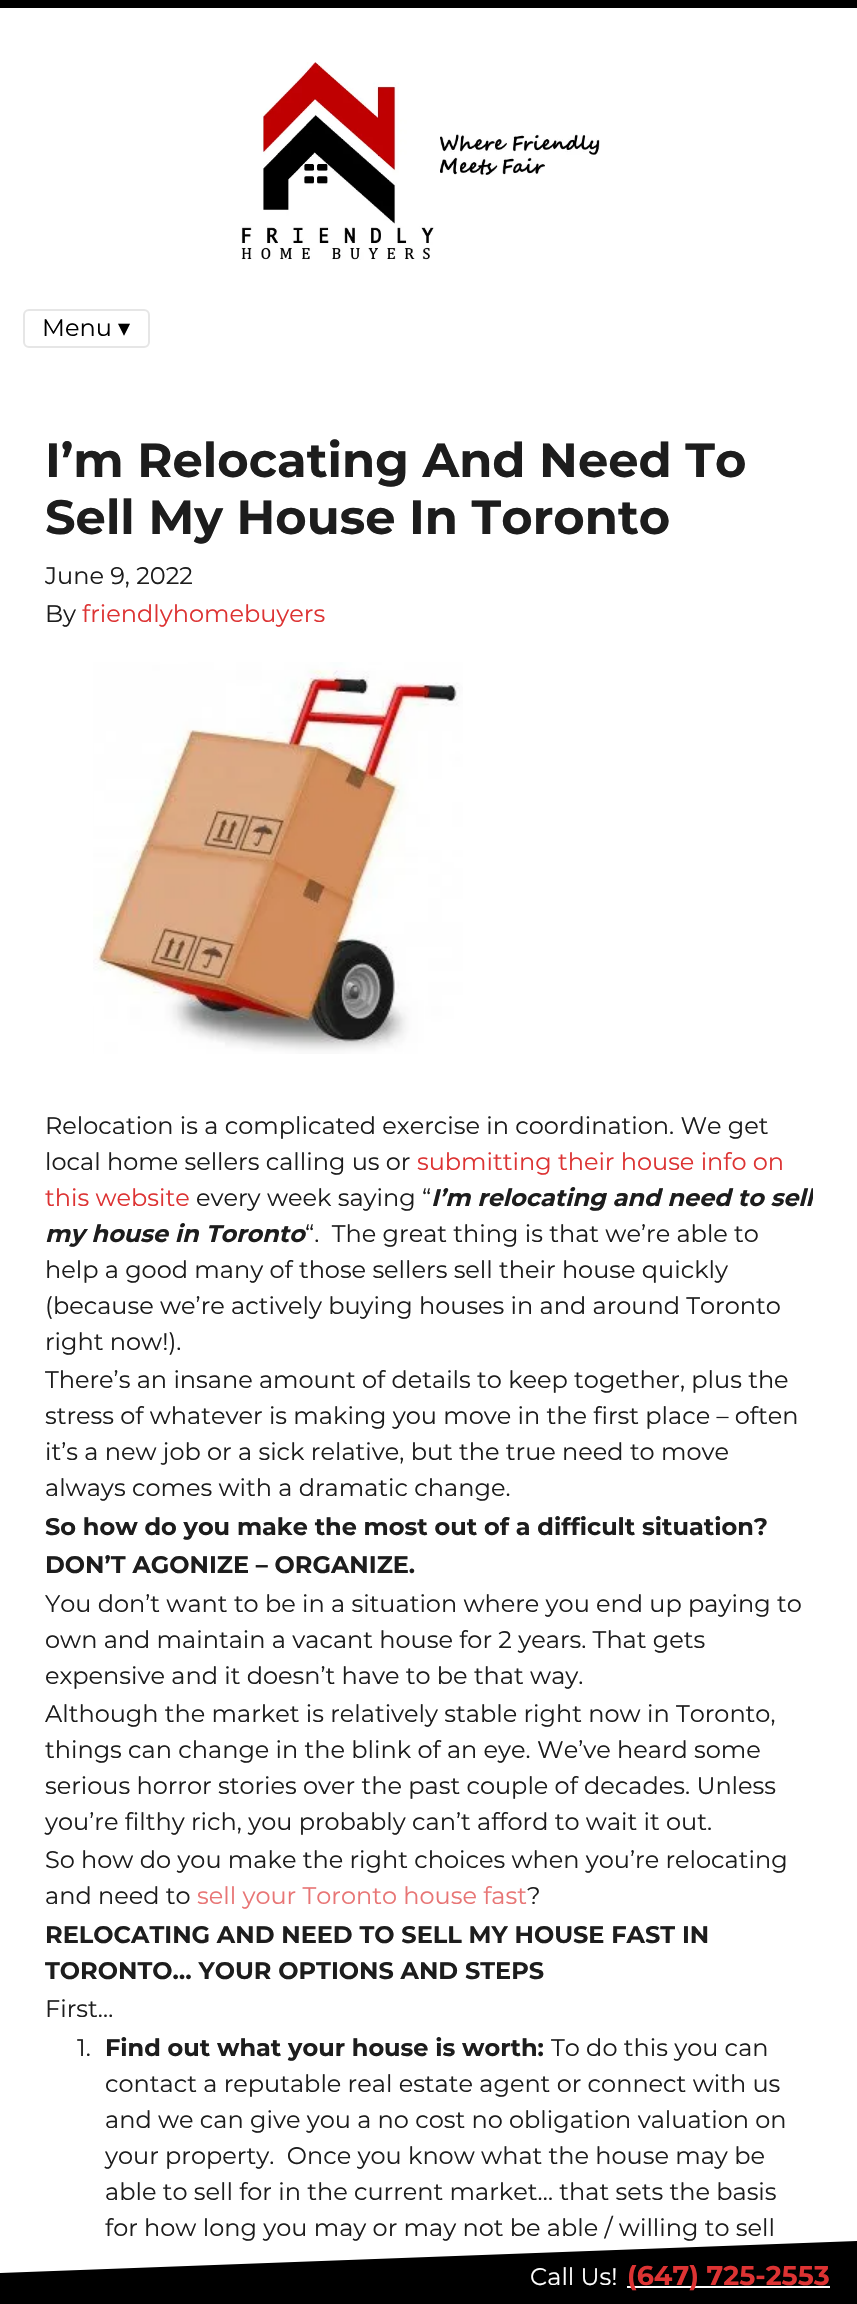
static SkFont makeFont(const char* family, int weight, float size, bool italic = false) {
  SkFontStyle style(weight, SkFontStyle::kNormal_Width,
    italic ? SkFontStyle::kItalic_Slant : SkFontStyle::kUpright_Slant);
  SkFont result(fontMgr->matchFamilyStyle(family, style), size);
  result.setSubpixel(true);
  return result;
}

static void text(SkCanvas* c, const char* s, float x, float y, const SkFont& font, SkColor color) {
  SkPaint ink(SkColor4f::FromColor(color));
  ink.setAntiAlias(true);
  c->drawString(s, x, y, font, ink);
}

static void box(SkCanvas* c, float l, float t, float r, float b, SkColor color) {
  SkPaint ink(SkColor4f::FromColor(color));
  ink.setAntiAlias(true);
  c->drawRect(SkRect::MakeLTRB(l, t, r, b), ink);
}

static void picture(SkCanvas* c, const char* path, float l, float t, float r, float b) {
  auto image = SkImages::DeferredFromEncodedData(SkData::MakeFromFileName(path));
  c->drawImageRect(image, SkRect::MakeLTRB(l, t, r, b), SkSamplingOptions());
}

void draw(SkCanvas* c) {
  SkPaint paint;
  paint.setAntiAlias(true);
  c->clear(0xffffffff);
  box(c, 0, 0, 857, 8, 0xff000000);
  picture(c, "img_01.png", 241, 62, 600, 260);
  paint.setStyle(SkPaint::kStroke_Style);
  paint.setStrokeWidth(2);
  paint.setColor(0xffe6e6e6);
  c->drawRoundRect(SkRect::MakeLTRB(24, 310, 149, 347), 5, 5, paint);
  SkFont face1 = makeFont("Montserrat", 400, 24);
  text(c, "Menu", 42, 336, face1, 0xff000000);
  SkFont face2 = makeFont("DejaVu Sans", 400, 24);
  text(c, "▾", 118, 336, face2, 0xff000000);
  SkFont face3 = makeFont("Montserrat", 700, 48);
  text(c, "I’m Relocating And Need To", 45, 477, face3, 0xff1d1d1d);
  text(c, "Sell My House In Toronto", 45, 534, face3, 0xff1d1d1d);
  text(c, "June 9, 2022", 45, 584, face1, 0xff1d1d1d);
  text(c, "By", 45, 622, face1, 0xff1d1d1d);
  text(c, "friendlyhomebuyers", 82, 622, face1, 0xffdd3333);
  picture(c, "img_02.png", 93, 662, 463, 1054);
  text(c, "Relocation is a complicated exercise in coordination. We get", 45, 1134, face1, 0xff1d1d1d);
  text(c, "local home sellers calling us or", 45, 1170, face1, 0xff1d1d1d);
  text(c, "submitting their house info on", 417, 1170, face1, 0xffdd3333);
  text(c, "this website", 45, 1206, face1, 0xffdd3333);
  text(c, "every week saying “", 196, 1206, face1, 0xff1d1d1d);
  c->save();
  c->clipRect(SkRect::MakeLTRB(45, 384, 813, 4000));
  SkFont face4 = makeFont("Montserrat", 700, 24, true);
  text(c, "I’m relocating and need to sell", 431, 1206, face4, 0xff1d1d1d);
  c->restore();
  text(c, "my house in Toronto", 45, 1242, face4, 0xff1d1d1d);
  text(c, "“.  The great thing is that we’re able to", 305, 1242, face1, 0xff1d1d1d);
  text(c, "help a good many of those sellers sell their house quickly", 45, 1278, face1, 0xff1d1d1d);
  text(c, "(because we’re actively buying houses in and around Toronto", 45, 1314, face1, 0xff1d1d1d);
  text(c, "right now!).", 45, 1350, face1, 0xff1d1d1d);
  text(c, "There’s an insane amount of details to keep together, plus the", 45, 1388, face1, 0xff1d1d1d);
  text(c, "stress of whatever is making you move in the first place – often", 45, 1424, face1, 0xff1d1d1d);
  text(c, "it’s a new job or a sick relative, but the true need to move", 45, 1460, face1, 0xff1d1d1d);
  text(c, "always comes with a dramatic change.", 45, 1496, face1, 0xff1d1d1d);
  SkFont face5 = makeFont("Montserrat", 700, 24);
  text(c, "So how do you make the most out of a difficult situation?", 45, 1535, face5, 0xff1d1d1d);
  text(c, "DON’T AGONIZE – ORGANIZE.", 45, 1573, face5, 0xff1d1d1d);
  text(c, "You don’t want to be in a situation where you end up paying to", 45, 1612, face1, 0xff1d1d1d);
  text(c, "own and maintain a vacant house for 2 years. That gets", 45, 1648, face1, 0xff1d1d1d);
  text(c, "expensive and it doesn’t have to be that way.", 45, 1684, face1, 0xff1d1d1d);
  text(c, "Although the market is relatively stable right now in Toronto,", 45, 1722, face1, 0xff1d1d1d);
  text(c, "things can change in the blink of an eye. We’ve heard some", 45, 1758, face1, 0xff1d1d1d);
  text(c, "serious horror stories over the past couple of decades. Unless", 45, 1794, face1, 0xff1d1d1d);
  text(c, "you’re filthy rich, you probably can’t afford to wait it out.", 45, 1830, face1, 0xff1d1d1d);
  text(c, "So how do you make the right choices when you’re relocating", 45, 1868, face1, 0xff1d1d1d);
  text(c, "and need to", 45, 1904, face1, 0xff1d1d1d);
  text(c, "sell your Toronto house fast", 197, 1904, face1, 0xffe87575);
  text(c, "?", 527, 1904, face1, 0xff1d1d1d);
  text(c, "RELOCATING AND NEED TO SELL MY HOUSE FAST IN", 45, 1943, face5, 0xff1d1d1d);
  text(c, "TORONTO… YOUR OPTIONS AND STEPS", 45, 1979, face5, 0xff1d1d1d);
  text(c, "First…", 45, 2017, face1, 0xff1d1d1d);
  text(c, "1.", 77, 2056, face1, 0xff1d1d1d);
  text(c, "Find out what your house is worth:", 105, 2056, face5, 0xff1d1d1d);
  text(c, "To do this you can", 551, 2056, face1, 0xff1d1d1d);
  text(c, "contact a reputable real estate agent or connect with us", 105, 2092, face1, 0xff1d1d1d);
  text(c, "and we can give you a no cost no obligation valuation on", 105, 2128, face1, 0xff1d1d1d);
  text(c, "your property.  Once you know what the house may be", 105, 2164, face1, 0xff1d1d1d);
  text(c, "able to sell for in the current market… that sets the basis", 105, 2200, face1, 0xff1d1d1d);
  text(c, "for how long you may or may not be able / willing to sell", 105, 2236, face1, 0xff1d1d1d);
  paint.setStyle(SkPaint::kFill_Style);
  paint.setColor(0xff000000);
  c->drawPath(SkPathBuilder().moveTo(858, 2241).lineTo(0, 2273).lineTo(0, 2304).lineTo(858, 2304).close().detach(), paint);
  text(c, "Call Us!", 530, 2285, face1, 0xffffffff);
  box(c, 627, 2286, 830, 2288, 0xffffffff);
  SkFont face6 = makeFont("Montserrat", 700, 27);
  text(c, "(647) 725-2553", 627, 2285, face6, 0xffdd3333);
}
